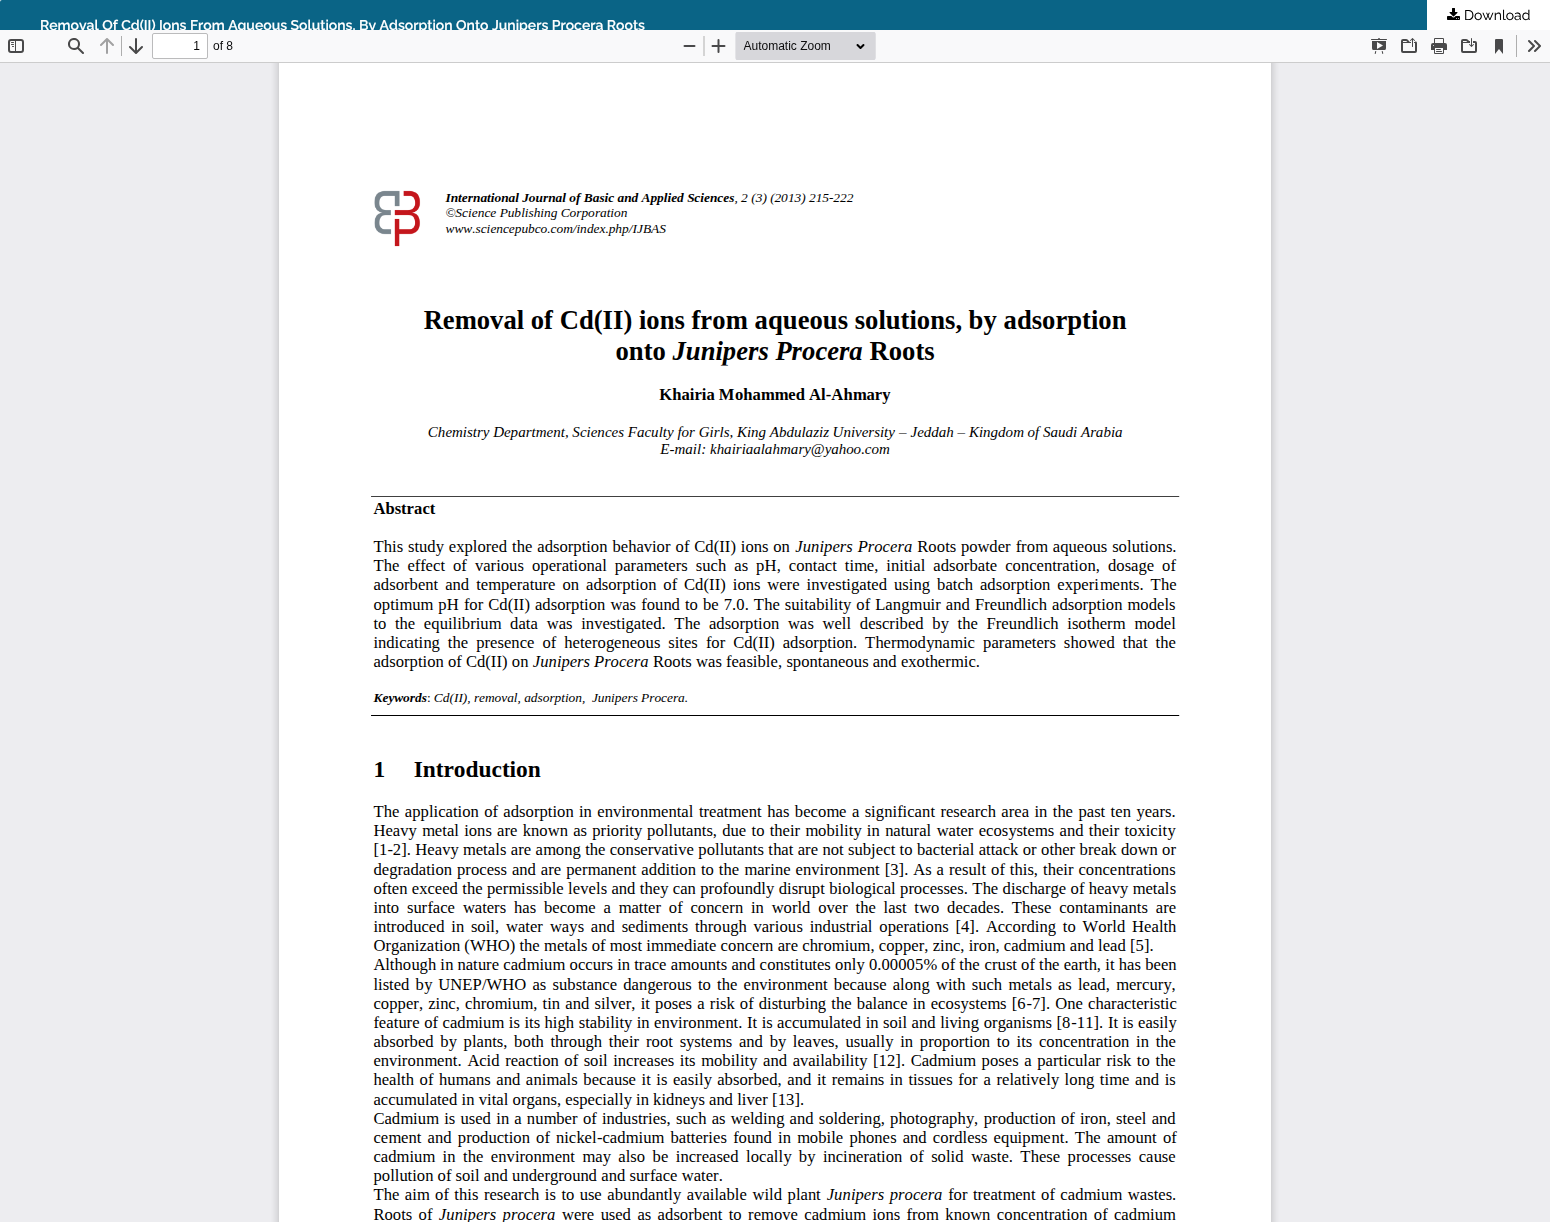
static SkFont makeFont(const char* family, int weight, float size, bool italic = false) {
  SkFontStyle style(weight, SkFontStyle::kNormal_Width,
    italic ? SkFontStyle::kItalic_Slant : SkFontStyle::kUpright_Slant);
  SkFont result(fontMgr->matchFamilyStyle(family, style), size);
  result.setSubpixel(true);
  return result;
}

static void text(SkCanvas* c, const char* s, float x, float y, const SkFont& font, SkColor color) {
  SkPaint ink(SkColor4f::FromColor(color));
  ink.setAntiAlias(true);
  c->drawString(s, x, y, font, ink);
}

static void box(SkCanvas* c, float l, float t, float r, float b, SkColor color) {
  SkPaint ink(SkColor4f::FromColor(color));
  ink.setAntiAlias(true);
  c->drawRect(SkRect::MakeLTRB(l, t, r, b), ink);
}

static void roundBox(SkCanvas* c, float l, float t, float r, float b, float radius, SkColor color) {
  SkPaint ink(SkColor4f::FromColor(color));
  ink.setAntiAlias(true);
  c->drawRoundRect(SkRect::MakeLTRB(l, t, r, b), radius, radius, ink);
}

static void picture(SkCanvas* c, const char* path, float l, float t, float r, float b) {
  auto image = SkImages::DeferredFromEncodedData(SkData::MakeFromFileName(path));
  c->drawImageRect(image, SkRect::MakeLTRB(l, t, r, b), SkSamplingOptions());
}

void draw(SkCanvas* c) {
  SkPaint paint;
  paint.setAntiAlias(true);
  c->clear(0xffffffff);
  roundBox(c, 0, 0, 1550, 50, 2, 0xff0a6486);
  box(c, 1427, 0, 1550, 30, 0xffffffff);
  picture(c, "img_01.png", 1447, 8, 1460, 20);
  SkFont face1 = makeFont("Raleway", 400, 14);
  text(c, "Download", 1464, 20, face1, 0xff000000);
  SkFont face2 = makeFont("Raleway", 600, 14);
  text(c, "Removal Of Cd(II) Ions From Aqueous Solutions, By Adsorption Onto Junipers Procera Roots", 40, 30, face2, 0xffffffff);
  picture(c, "img_02.png", 0, 30, 1550, 1222);
}
